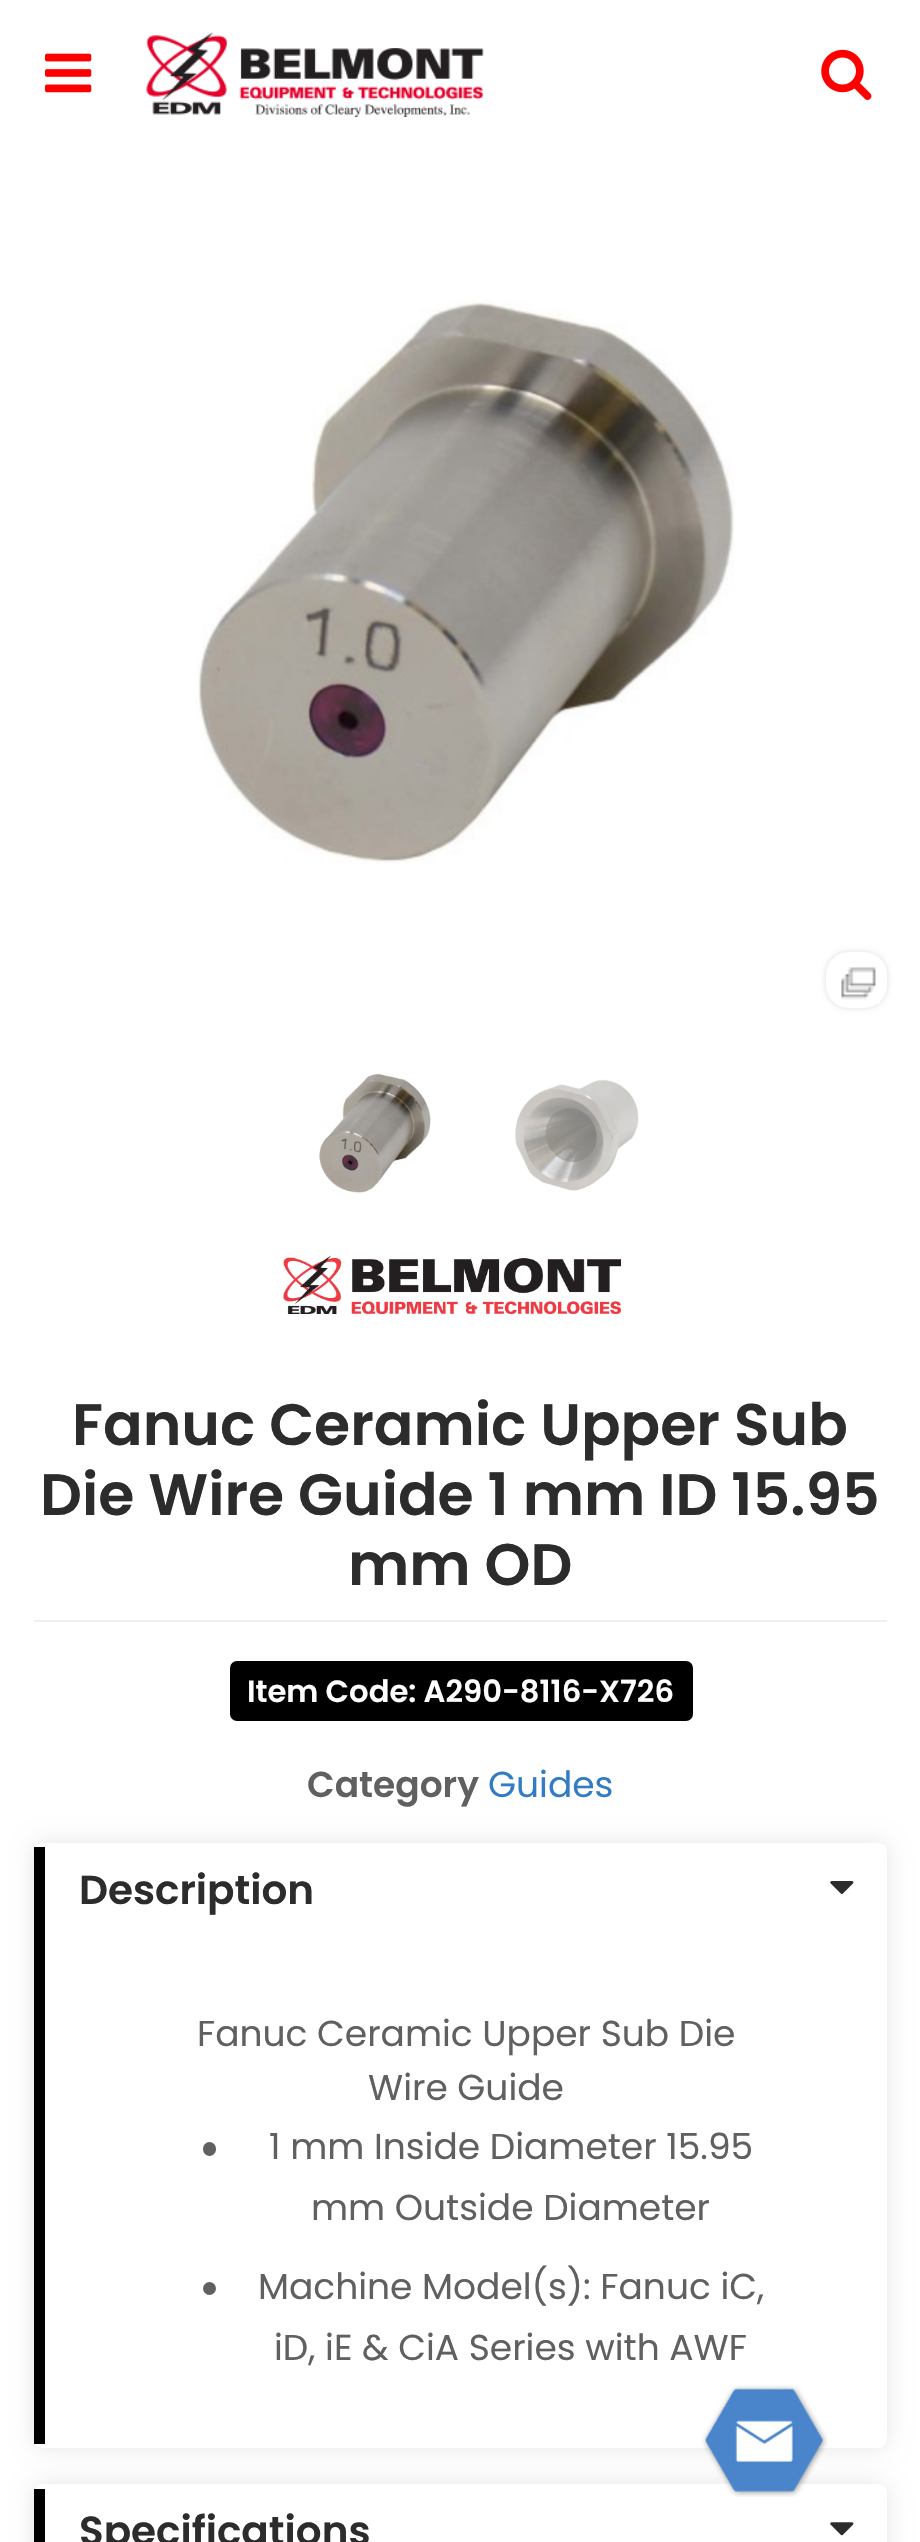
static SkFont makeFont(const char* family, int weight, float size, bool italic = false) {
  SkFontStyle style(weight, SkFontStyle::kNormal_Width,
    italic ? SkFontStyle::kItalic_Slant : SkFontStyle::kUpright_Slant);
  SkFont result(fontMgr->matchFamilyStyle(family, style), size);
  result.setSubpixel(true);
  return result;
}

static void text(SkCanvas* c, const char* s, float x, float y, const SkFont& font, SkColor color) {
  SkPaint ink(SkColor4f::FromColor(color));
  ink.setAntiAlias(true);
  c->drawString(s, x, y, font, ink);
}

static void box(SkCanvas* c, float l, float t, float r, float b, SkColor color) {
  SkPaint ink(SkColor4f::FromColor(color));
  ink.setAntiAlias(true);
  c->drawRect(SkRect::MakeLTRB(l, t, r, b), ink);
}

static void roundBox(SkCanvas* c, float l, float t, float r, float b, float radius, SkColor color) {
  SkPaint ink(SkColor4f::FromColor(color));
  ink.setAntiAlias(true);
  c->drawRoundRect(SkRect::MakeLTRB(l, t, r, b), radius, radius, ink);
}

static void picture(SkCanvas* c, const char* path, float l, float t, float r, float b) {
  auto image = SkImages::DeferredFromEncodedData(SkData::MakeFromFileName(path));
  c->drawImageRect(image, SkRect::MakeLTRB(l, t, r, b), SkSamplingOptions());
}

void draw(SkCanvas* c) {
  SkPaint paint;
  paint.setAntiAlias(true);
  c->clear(0xffffffff);
  picture(c, "img_01.png", 45, 53, 92, 93);
  picture(c, "img_02.png", 146, 32, 484, 117);
  picture(c, "img_03.png", 821, 49, 872, 100);
  picture(c, "img_04.png", 196, 300, 735, 865);
  paint.setColor(0x12000000);
  paint.setMaskFilter(SkMaskFilter::MakeBlur(kNormal_SkBlurStyle, 2));
  c->drawRoundRect(SkRect::MakeLTRB(824, 950, 889, 1010), 25, 25, paint);
  paint.setMaskFilter(nullptr);
  roundBox(c, 826, 952, 887, 1008, 23, 0xffffffff);
  picture(c, "img_05.png", 841, 967, 880, 1004);
  picture(c, "img_06.png", 319, 1073, 431, 1193);
  picture(c, "img_07.png", 515, 1079, 639, 1191);
  box(c, 34, 1620, 887, 1622, 0xffefefef);
  picture(c, "img_08.png", 283, 1255, 621, 1314);
  SkFont face1 = makeFont("Poppins", 600, 58.5f);
  text(c, "Fanuc Ceramic Upper Sub", 72, 1445, face1, 0xff2c2c2c);
  text(c, "Die Wire Guide 1 mm ID 15.95", 40, 1515, face1, 0xff2c2c2c);
  text(c, "mm OD", 348, 1585, face1, 0xff2c2c2c);
  roundBox(c, 230, 1661, 693, 1721, 7, 0xff000000);
  SkFont face2 = makeFont("Poppins", 600, 30.6f);
  text(c, "Item Code: A290-8116-X726", 247, 1702, face2, 0xffffffff);
  SkFont face3 = makeFont("Poppins", 600, 36);
  text(c, "Category", 307, 1797, face3, 0xff606060);
  SkFont face4 = makeFont("Poppins", 400, 36);
  text(c, "Guides", 488, 1797, face4, 0xff317cc5);
  c->save();
  c->clipPath(SkPathBuilder(SkPathFillType::kEvenOdd).moveTo(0, 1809).lineTo(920, 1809).lineTo(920, 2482).lineTo(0, 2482).close().moveTo(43, 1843).lineTo(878, 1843).cubicTo(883, 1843, 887, 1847, 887, 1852).lineTo(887, 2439).cubicTo(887, 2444, 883, 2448, 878, 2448).lineTo(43, 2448).cubicTo(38, 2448, 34, 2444, 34, 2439).lineTo(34, 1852).cubicTo(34, 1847, 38, 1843, 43, 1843).close().detach(), true);
  paint.setColor(0x1a000000);
  paint.setMaskFilter(SkMaskFilter::MakeBlur(kNormal_SkBlurStyle, 11));
  c->drawRoundRect(SkRect::MakeLTRB(34, 1843, 887, 2448), 9, 9, paint);
  paint.setMaskFilter(nullptr);
  c->restore();
  box(c, 34, 1847, 45, 2444, 0xff000000);
  SkFont face5 = makeFont("Poppins", 600, 40.5f);
  text(c, "Description", 79, 1904, face5, 0xff2c2c2c);
  picture(c, "img_09.png", 830, 1881, 854, 1894);
  text(c, "Fanuc Ceramic Upper Sub Die", 197, 2046, face4, 0xff606060);
  text(c, "Wire Guide", 368, 2100, face4, 0xff606060);
  roundBox(c, 203, 2142, 216, 2156, 6.5f, 0xff606060);
  text(c, "1 mm Inside Diameter 15.95", 269, 2159, face4, 0xff606060);
  text(c, "mm Outside Diameter", 311, 2220, face4, 0xff606060);
  paint.setColor(0xff606060);
  c->drawCircle(209.5f, 2288.5f, 6.5f, paint);
  text(c, "Machine Model(s): Fanuc iC,", 258, 2299, face4, 0xff606060);
  text(c, "iD, iE & CiA Series with AWF", 274, 2360, face4, 0xff606060);
  c->save();
  c->clipPath(SkPathBuilder(SkPathFillType::kEvenOdd).moveTo(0, 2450).lineTo(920, 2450).lineTo(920, 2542).lineTo(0, 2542).close().moveTo(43, 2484).lineTo(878, 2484).cubicTo(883, 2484, 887, 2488, 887, 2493).lineTo(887, 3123).cubicTo(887, 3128, 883, 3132, 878, 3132).lineTo(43, 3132).cubicTo(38, 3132, 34, 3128, 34, 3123).lineTo(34, 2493).cubicTo(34, 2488, 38, 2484, 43, 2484).close().detach(), true);
  paint.setColor(0x1a000000);
  paint.setMaskFilter(SkMaskFilter::MakeBlur(kNormal_SkBlurStyle, 11));
  c->drawRoundRect(SkRect::MakeLTRB(34, 2484, 887, 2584), 9, 9, paint);
  paint.setMaskFilter(nullptr);
  c->restore();
  box(c, 34, 2489, 45, 2542, 0xff000000);
  text(c, "Specifications", 79, 2545, face5, 0xff2c2c2c);
  picture(c, "img_10.png", 830, 2522, 854, 2536);
  picture(c, "img_11.png", 702, 2385, 828, 2497);
}
